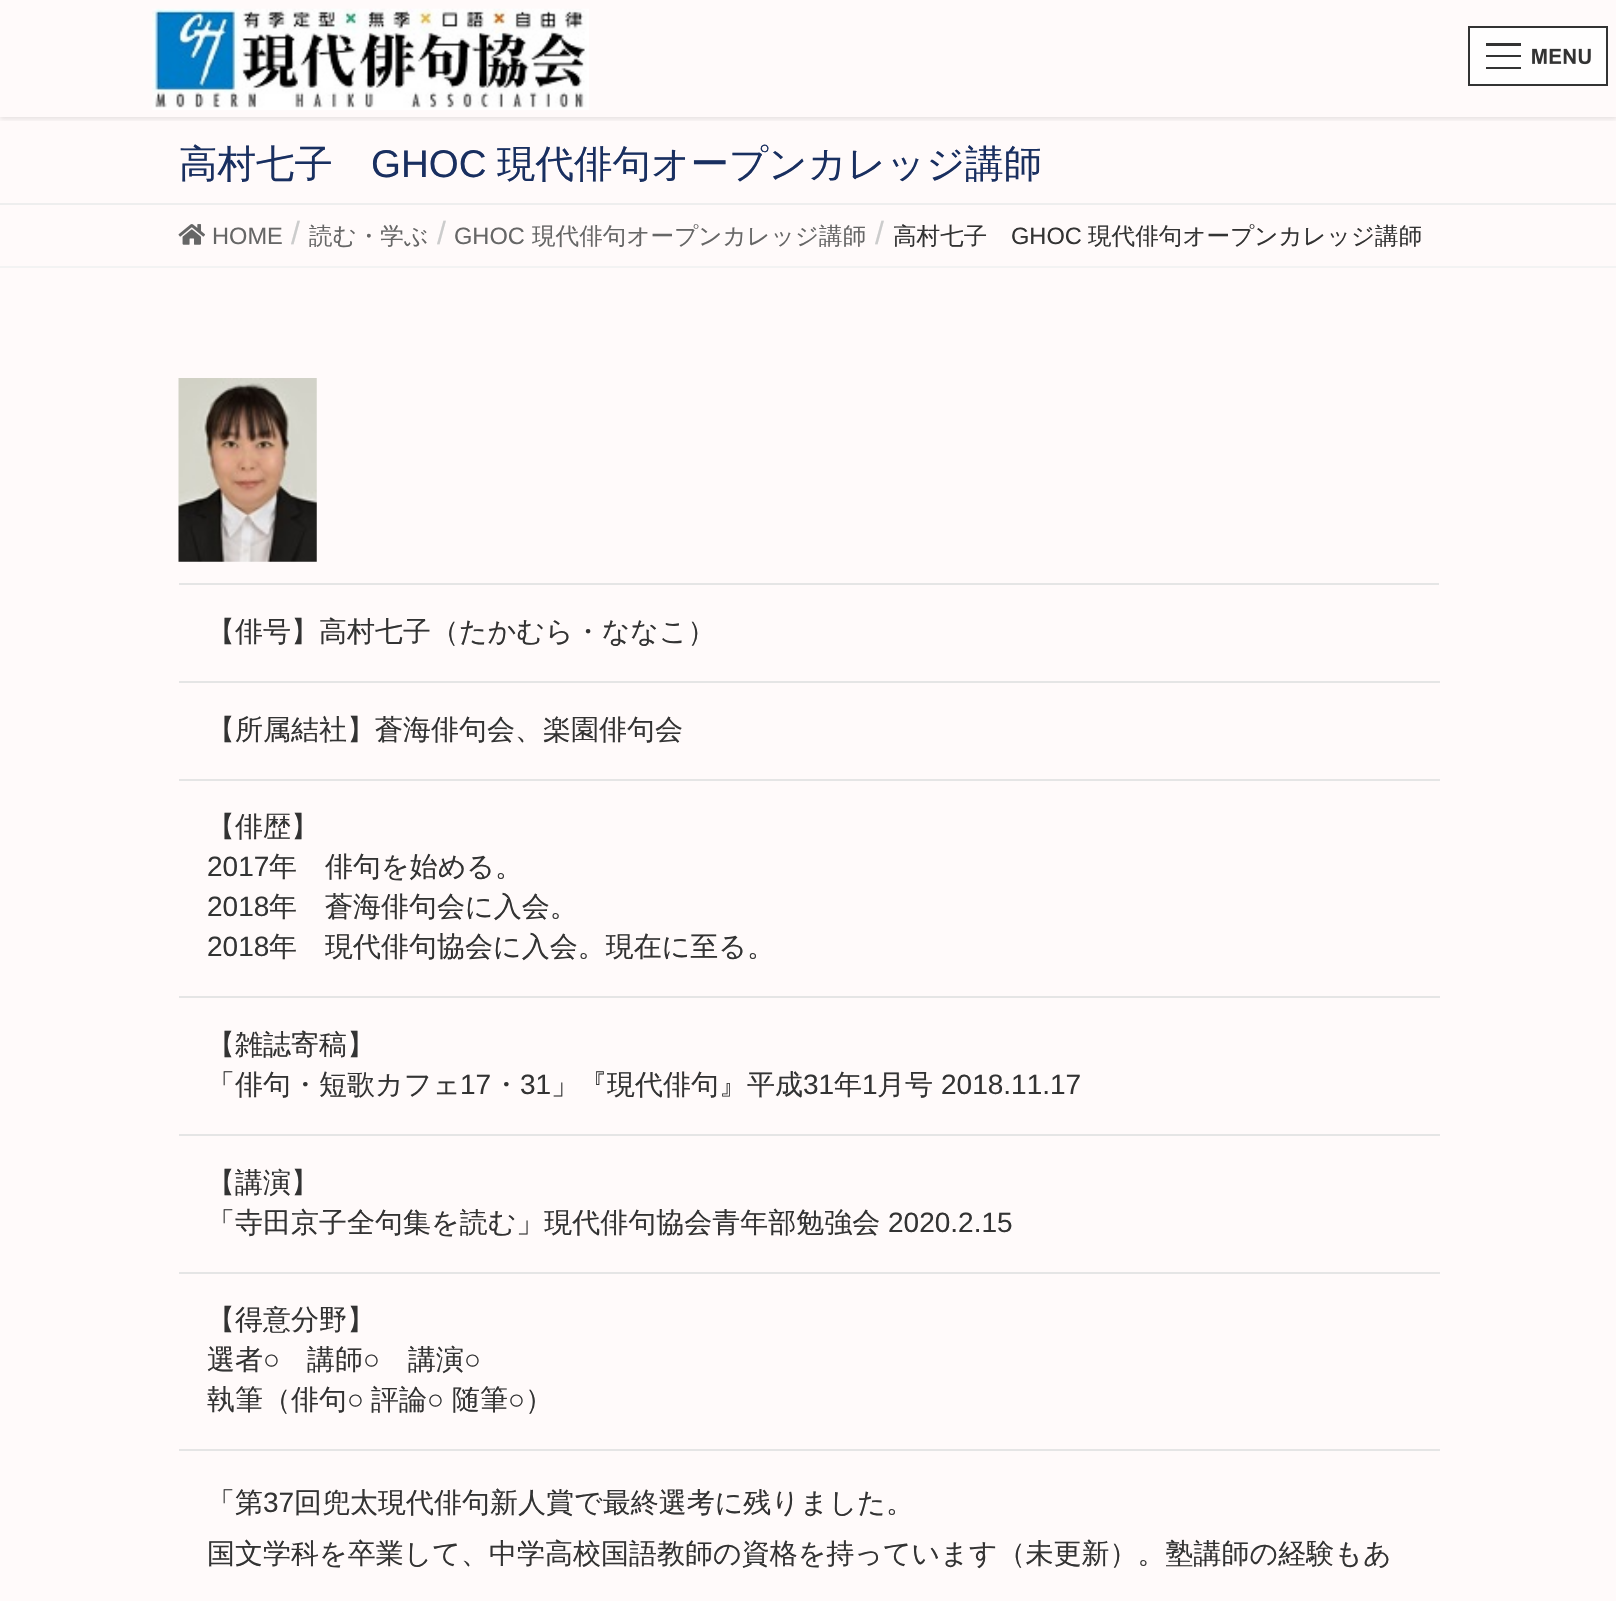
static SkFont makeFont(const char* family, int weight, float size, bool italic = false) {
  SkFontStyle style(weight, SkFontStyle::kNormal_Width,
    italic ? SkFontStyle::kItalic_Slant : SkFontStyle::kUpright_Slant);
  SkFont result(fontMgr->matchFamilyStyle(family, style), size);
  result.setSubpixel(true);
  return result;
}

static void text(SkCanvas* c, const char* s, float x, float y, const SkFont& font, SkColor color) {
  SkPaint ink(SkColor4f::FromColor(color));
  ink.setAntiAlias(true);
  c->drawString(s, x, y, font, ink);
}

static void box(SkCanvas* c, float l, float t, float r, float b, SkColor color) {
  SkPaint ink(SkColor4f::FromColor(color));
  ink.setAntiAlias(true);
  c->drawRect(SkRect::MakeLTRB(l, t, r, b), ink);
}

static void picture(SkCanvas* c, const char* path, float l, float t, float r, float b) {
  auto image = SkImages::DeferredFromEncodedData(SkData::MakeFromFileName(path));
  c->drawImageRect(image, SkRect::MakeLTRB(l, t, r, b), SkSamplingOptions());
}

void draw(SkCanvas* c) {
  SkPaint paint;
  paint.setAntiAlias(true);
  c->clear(0xfffffafa);
  c->save();
  c->clipRect(SkRect::MakeLTRB(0, 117, 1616, 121));
  paint.setColor(0x1a000000);
  paint.setMaskFilter(SkMaskFilter::MakeBlur(kNormal_SkBlurStyle, 2.5f));
  c->drawRect(SkRect::MakeLTRB(0, 2, 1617, 119), paint);
  paint.setMaskFilter(nullptr);
  c->restore();
  picture(c, "img_01.png", 152, 8, 589, 110);
  box(c, 1470, 28, 1606, 84, 0xfffffefe);
  picture(c, "img_02.png", 1486, 43, 1591, 69);
  paint.setStyle(SkPaint::kStroke_Style);
  paint.setStrokeWidth(2);
  paint.setColor(0xff333333);
  c->drawRect(SkRect::MakeLTRB(1469, 27, 1607, 85), paint);
  box(c, 0, 203, 1616, 205, 0xffeeeeee);
  SkFont face1 = makeFont("WenQuanYi Zen Hei", 500, 38.5f);
  text(c, "高村七子", 179, 177, face1, 0xff192f60);
  SkFont face2 = makeFont("Liberation Sans", 400, 38.5f);
  text(c, "GHOC", 371, 177, face2, 0xff192f60);
  text(c, "現代俳句オープンカレッジ講師", 497, 177, face1, 0xff192f60);
  box(c, 0, 266, 1616, 268, 0xfff3f3f3);
  picture(c, "img_03.png", 178, 224, 205, 245);
  SkFont face3 = makeFont("Liberation Sans", 400, 23.6f);
  text(c, "HOME", 212, 244, face3, 0xff666666);
  SkFont face4 = makeFont("Liberation Sans", 400, 32);
  text(c, "/", 291, 244, face4, 0xffcccccc);
  SkFont face5 = makeFont("WenQuanYi Zen Hei", 500, 23.6f);
  text(c, "読む・学ぶ", 309, 244, face5, 0xff666666);
  text(c, "/", 437, 244, face4, 0xffcccccc);
  text(c, "GHOC", 454, 244, face3, 0xff666666);
  text(c, "現代俳句オープンカレッジ講師", 532, 244, face5, 0xff666666);
  text(c, "/", 875, 244, face4, 0xffcccccc);
  text(c, "高村七子", 893, 244, face5, 0xff333333);
  text(c, "GHOC", 1011, 244, face3, 0xff333333);
  text(c, "現代俳句オープンカレッジ講師", 1088, 244, face5, 0xff333333);
  picture(c, "img_04.png", 178, 378, 317, 562);
  box(c, 179, 583, 1439, 585, 0xffe5e5e5);
  box(c, 179, 681, 1440, 683, 0xffe5e5e5);
  SkFont face6 = makeFont("WenQuanYi Zen Hei", 500, 28);
  text(c, "【俳号】高村七子（たかむら・ななこ）", 207, 641, face6, 0xff333333);
  box(c, 179, 779, 1440, 781, 0xffe5e5e5);
  text(c, "【所属結社】蒼海俳句会、楽園俳句会", 207, 739, face6, 0xff333333);
  box(c, 179, 996, 1440, 998, 0xffe5e5e5);
  text(c, "【俳歴】", 207, 836, face6, 0xff333333);
  SkFont face7 = makeFont("Liberation Sans", 400, 28);
  text(c, "2017", 207, 876, face7, 0xff333333);
  text(c, "年　俳句を始める。", 269, 876, face6, 0xff333333);
  text(c, "2018", 207, 916, face7, 0xff333333);
  text(c, "年　蒼海俳句会に入会。", 269, 916, face6, 0xff333333);
  text(c, "2018", 207, 956, face7, 0xff333333);
  text(c, "年　現代俳句協会に入会。現在に至る。", 269, 956, face6, 0xff333333);
  box(c, 179, 1134, 1440, 1136, 0xffe5e5e5);
  text(c, "【雑誌寄稿】", 207, 1054, face6, 0xff333333);
  text(c, "「俳句・短歌カフェ", 207, 1094, face6, 0xff333333);
  text(c, "17", 460, 1094, face7, 0xff333333);
  text(c, "・", 492, 1094, face6, 0xff333333);
  text(c, "31", 520, 1094, face7, 0xff333333);
  text(c, "」『現代俳句』平成", 551, 1094, face6, 0xff333333);
  text(c, "31", 803, 1094, face7, 0xff333333);
  text(c, "年", 834, 1094, face6, 0xff333333);
  text(c, "1", 862, 1094, face7, 0xff333333);
  text(c, "月号", 877, 1094, face6, 0xff333333);
  text(c, "2018.11.17", 941, 1094, face7, 0xff333333);
  box(c, 179, 1272, 1440, 1274, 0xffe5e5e5);
  text(c, "【講演】", 207, 1192, face6, 0xff333333);
  text(c, "「寺田京子全句集を読む」現代俳句協会青年部勉強会", 207, 1232, face6, 0xff333333);
  text(c, "2020.2.15", 888, 1232, face7, 0xff333333);
  box(c, 179, 1449, 1440, 1451, 0xffe5e5e5);
  text(c, "【得意分野】", 207, 1329, face6, 0xff333333);
  text(c, "選者", 207, 1369, face6, 0xff333333);
  text(c, "○", 263, 1369, face7, 0xff333333);
  text(c, "講師", 307, 1369, face6, 0xff333333);
  text(c, "○", 363, 1369, face7, 0xff333333);
  text(c, "講演", 408, 1369, face6, 0xff333333);
  text(c, "○", 464, 1369, face7, 0xff333333);
  text(c, "執筆（俳句", 207, 1409, face6, 0xff333333);
  text(c, "○", 347, 1409, face7, 0xff333333);
  text(c, "評論", 371, 1409, face6, 0xff333333);
  text(c, "○", 427, 1409, face7, 0xff333333);
  text(c, "随筆", 452, 1409, face6, 0xff333333);
  text(c, "○", 508, 1409, face7, 0xff333333);
  text(c, "）", 525, 1409, face6, 0xff333333);
  text(c, "「第", 207, 1512, face6, 0xff333333);
  text(c, "37", 263, 1512, face7, 0xff333333);
  text(c, "回兜太現代俳句新人賞で最終選考に残りました。", 294, 1512, face6, 0xff333333);
  text(c, "国文学科を卒業して、中学高校国語教師の資格を持っています（未更新）。塾講師の経験もあ", 207, 1563, face6, 0xff333333);
}
